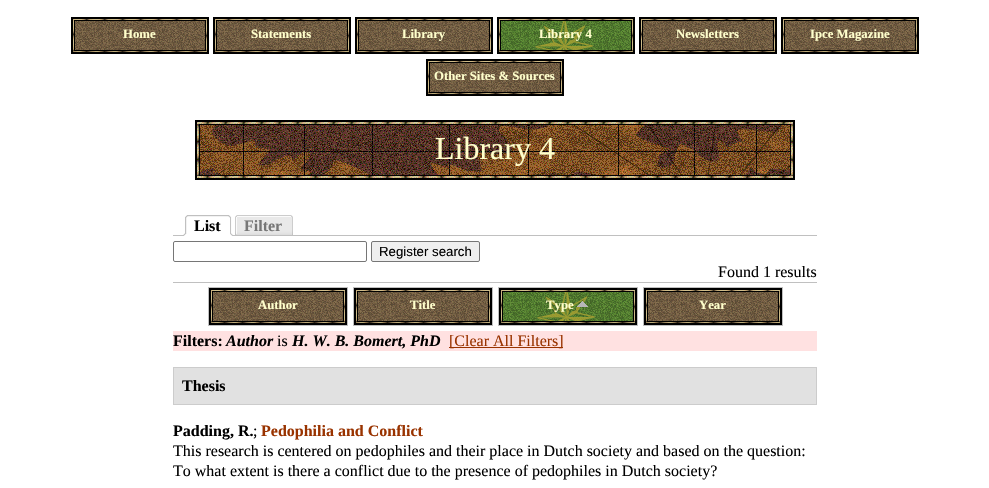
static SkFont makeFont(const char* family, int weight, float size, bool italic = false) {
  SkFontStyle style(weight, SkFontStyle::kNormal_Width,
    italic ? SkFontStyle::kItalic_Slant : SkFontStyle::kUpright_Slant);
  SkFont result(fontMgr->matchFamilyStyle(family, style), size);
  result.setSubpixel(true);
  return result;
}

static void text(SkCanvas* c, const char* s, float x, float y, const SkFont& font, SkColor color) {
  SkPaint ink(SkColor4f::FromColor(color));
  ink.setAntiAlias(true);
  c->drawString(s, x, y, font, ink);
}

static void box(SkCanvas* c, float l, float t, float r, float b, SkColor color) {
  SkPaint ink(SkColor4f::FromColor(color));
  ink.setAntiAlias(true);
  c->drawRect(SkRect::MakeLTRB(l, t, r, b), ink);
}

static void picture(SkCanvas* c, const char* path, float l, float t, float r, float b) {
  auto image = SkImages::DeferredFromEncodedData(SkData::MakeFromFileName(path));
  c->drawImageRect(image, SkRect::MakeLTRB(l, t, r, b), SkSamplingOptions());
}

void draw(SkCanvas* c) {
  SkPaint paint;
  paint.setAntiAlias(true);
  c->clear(0xffffffff);
  picture(c, "img_01.png", 71, 17, 209, 54);
  SkFont face1 = makeFont("Liberation Serif", 700, 12.75f);
  text(c, "Home", 123, 38, face1, 0xffffffcc);
  picture(c, "img_01.png", 213, 17, 351, 54);
  text(c, "Statements", 251, 38, face1, 0xffffffcc);
  picture(c, "img_01.png", 355, 17, 493, 54);
  text(c, "Library", 402, 38, face1, 0xffffffcc);
  picture(c, "img_02.png", 497, 17, 635, 54);
  text(c, "Library 4", 539, 38, face1, 0xffffffcc);
  picture(c, "img_01.png", 639, 17, 777, 54);
  text(c, "Newsletters", 676, 38, face1, 0xffffffcc);
  picture(c, "img_01.png", 781, 17, 919, 54);
  text(c, "Ipce Magazine", 810, 38, face1, 0xffffffcc);
  picture(c, "img_01.png", 426, 59, 564, 96);
  text(c, "Other Sites & Sources", 434, 80, face1, 0xffffffcc);
  picture(c, "img_03.png", 195, 120, 795, 180);
  SkFont face2 = makeFont("Liberation Serif", 400, 32);
  text(c, "Library 4", 435, 159, face2, 0xffffffcc);
  box(c, 173, 235, 817, 236, 0xffc0c0c0);
  picture(c, "img_04.png", 183, 215, 188, 236);
  picture(c, "img_05.png", 188, 215, 233, 236);
  SkFont face3 = makeFont("Liberation Serif", 700, 16);
  text(c, "List", 194, 231, face3, 0xff000000);
  picture(c, "img_06.png", 235, 215, 238, 235);
  picture(c, "img_07.png", 238, 215, 293, 235);
  text(c, "Filter", 244, 231, face3, 0xff777777);
  paint.setStyle(SkPaint::kStroke_Style);
  paint.setStrokeWidth(1);
  paint.setColor(0xff767676);
  c->drawRoundRect(SkRect::MakeLTRB(173.5f, 241.5f, 366.5f, 261.5f), 1.5f, 1.5f, paint);
  paint.setStyle(SkPaint::kFill_Style);
  paint.setColor(0xffefefef);
  c->drawRoundRect(SkRect::MakeLTRB(371.5f, 241.5f, 479.5f, 261.5f), 1.5f, 1.5f, paint);
  paint.setStyle(SkPaint::kStroke_Style);
  paint.setColor(0xff767676);
  c->drawRoundRect(SkRect::MakeLTRB(371.5f, 241.5f, 479.5f, 261.5f), 1.5f, 1.5f, paint);
  SkFont face4 = makeFont("Liberation Sans", 400, 13.25f);
  text(c, "Register search", 379, 256, face4, 0xff000000);
  SkFont face5 = makeFont("Liberation Serif", 400, 16);
  text(c, "Found 1 results", 718, 277, face5, 0xff000000);
  box(c, 173, 282, 817, 283, 0xffc0c0c0);
  picture(c, "img_01.png", 209, 288, 347, 325);
  paint.setColor(0xffc0c0c0);
  c->drawRect(SkRect::MakeLTRB(208.5f, 287.5f, 347.5f, 325.5f), paint);
  text(c, "Author", 258, 309, face1, 0xffffffcc);
  picture(c, "img_01.png", 354, 288, 492, 325);
  c->drawRect(SkRect::MakeLTRB(353.5f, 287.5f, 492.5f, 325.5f), paint);
  text(c, "Title", 410, 309, face1, 0xffffffcc);
  picture(c, "img_02.png", 499, 288, 637, 325);
  c->drawRect(SkRect::MakeLTRB(498.5f, 287.5f, 637.5f, 325.5f), paint);
  text(c, "Type", 546, 309, face1, 0xffffffcc);
  picture(c, "img_08.png", 577, 301, 588, 307);
  picture(c, "img_01.png", 644, 288, 782, 325);
  c->drawRect(SkRect::MakeLTRB(643.5f, 287.5f, 782.5f, 325.5f), paint);
  text(c, "Year", 699, 309, face1, 0xffffffcc);
  box(c, 173, 331, 817, 351, 0xffffe1e1);
  text(c, "Filters:", 173, 346, face3, 0xff000000);
  SkFont face6 = makeFont("Liberation Serif", 700, 16, true);
  text(c, "Author", 226, 346, face6, 0xff000000);
  text(c, "is", 277, 346, face5, 0xff000000);
  text(c, "H. W. B. Bomert, PhD", 292, 346, face6, 0xff000000);
  box(c, 449, 347, 563, 348, 0xff993300);
  text(c, "[Clear All Filters]", 449, 346, face5, 0xff993300);
  paint.setStyle(SkPaint::kFill_Style);
  paint.setColor(0xffe1e1e1);
  c->drawRect(SkRect::MakeLTRB(173.5f, 367.5f, 816.5f, 404.5f), paint);
  paint.setStyle(SkPaint::kStroke_Style);
  paint.setColor(0xffcccccc);
  c->drawRect(SkRect::MakeLTRB(173.5f, 367.5f, 816.5f, 404.5f), paint);
  text(c, "Thesis", 182, 391, face3, 0xff000000);
  text(c, "Padding, R.", 173, 436, face3, 0xff000000);
  text(c, ";", 253, 436, face5, 0xff000000);
  text(c, "Pedophilia and Conflict", 261, 436, face3, 0xff993300);
  text(c, "This research is centered on pedophiles and their place in Dutch society and based on the question:", 173, 456, face5, 0xff000000);
  text(c, "To what extent is there a conflict due to the presence of pedophiles in Dutch society?", 173, 476, face5, 0xff000000);
}
